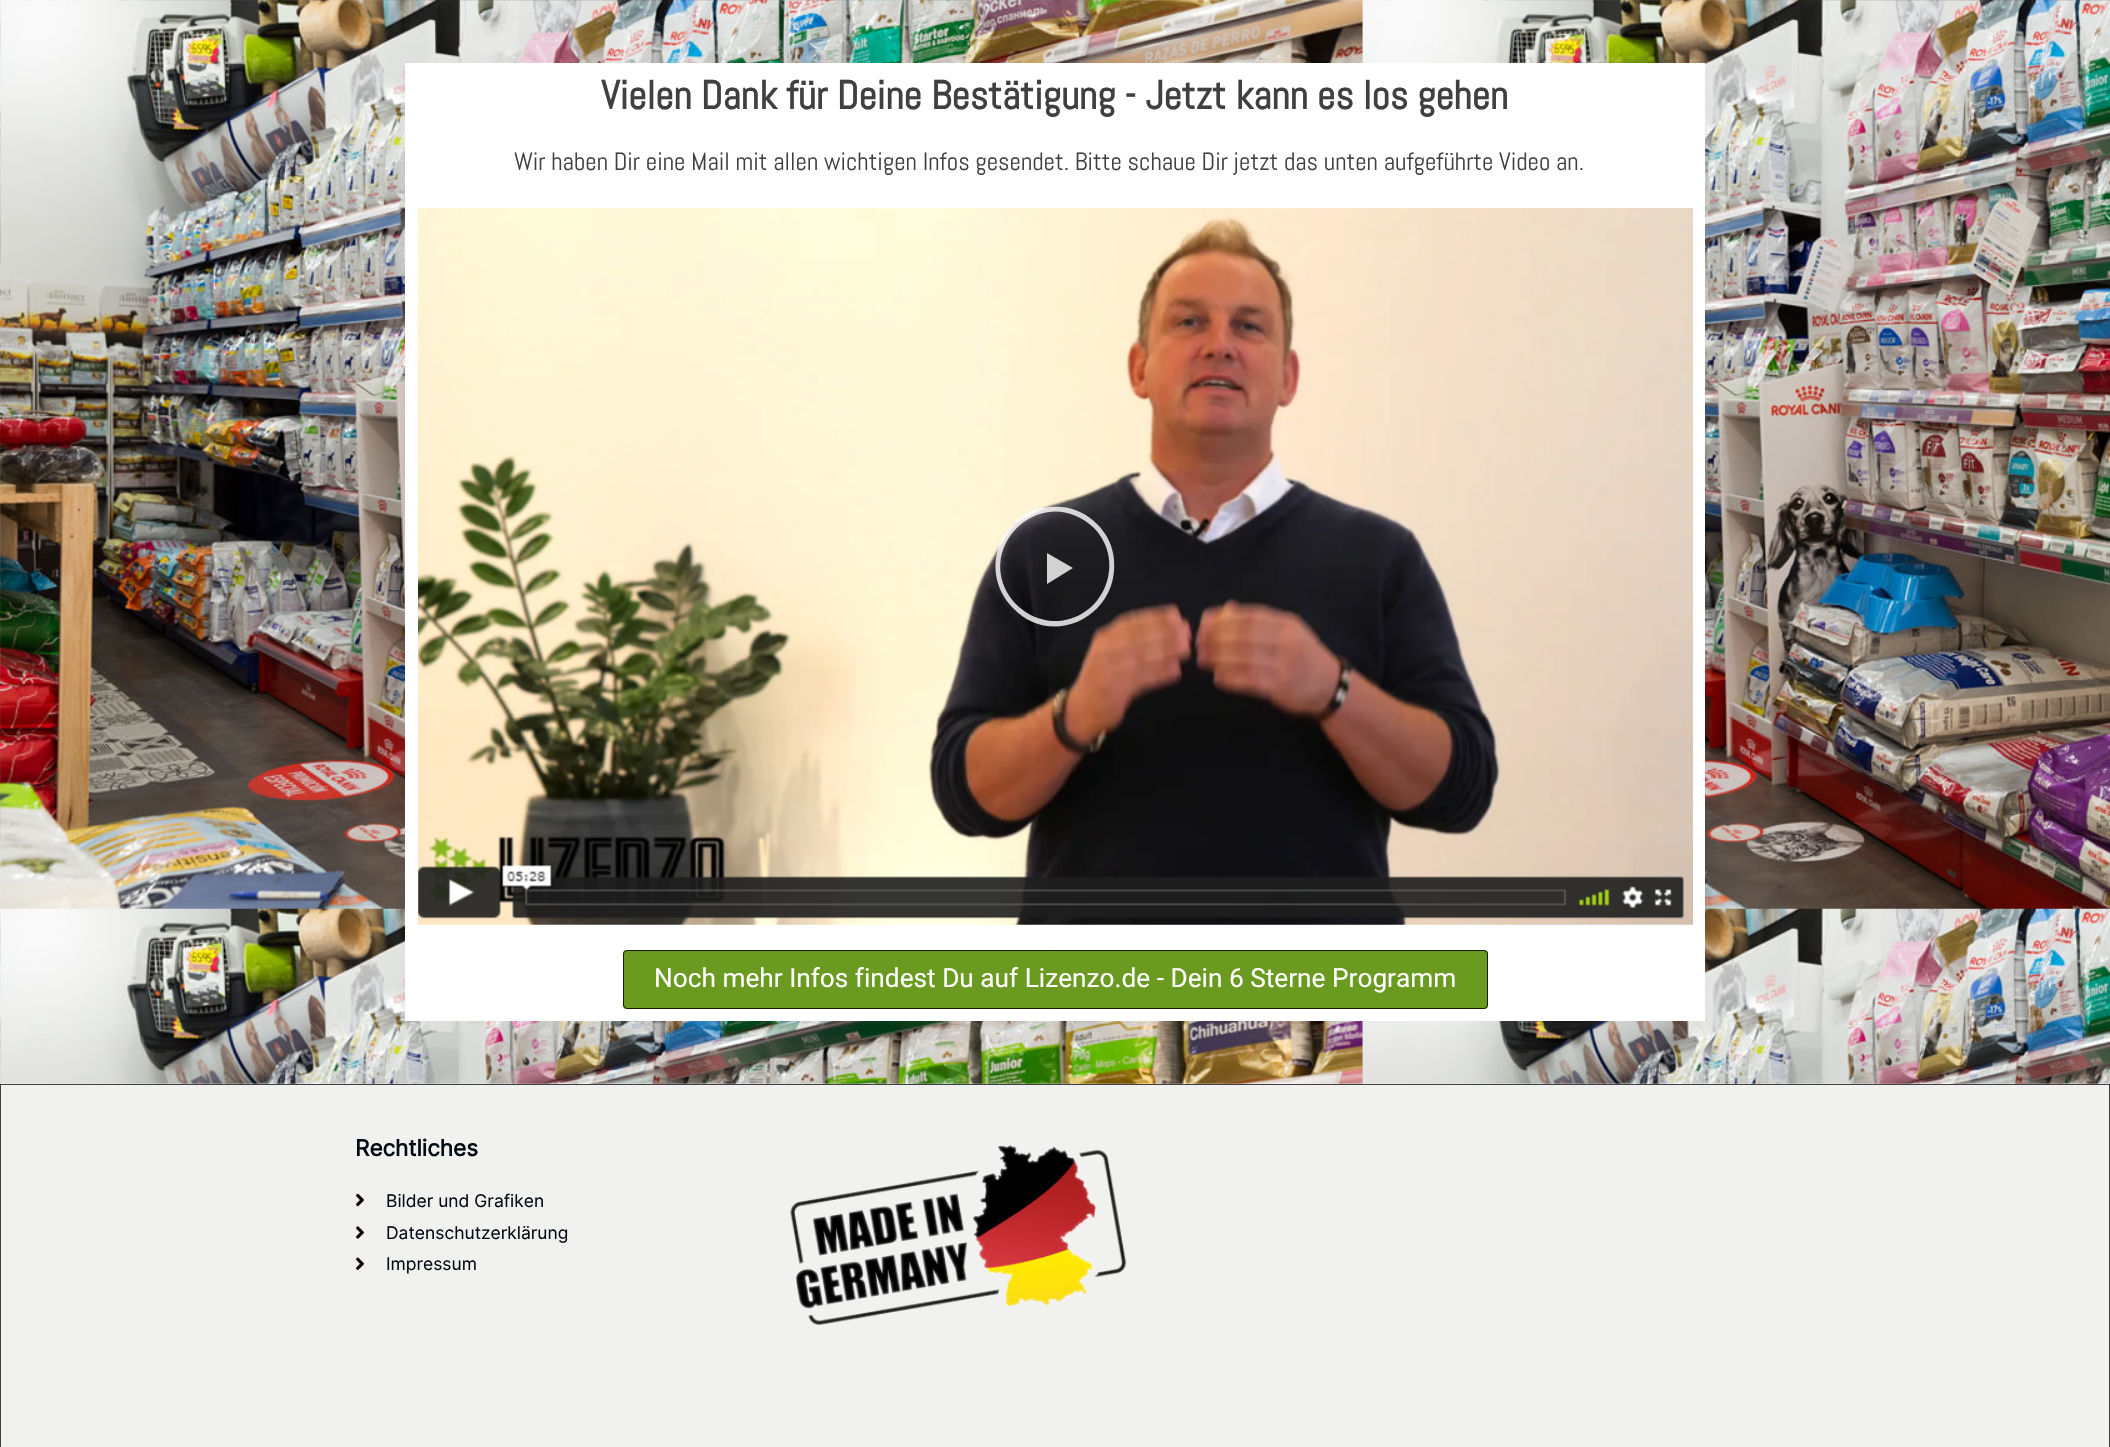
static SkFont makeFont(const char* family, int weight, float size, bool italic = false) {
  SkFontStyle style(weight, SkFontStyle::kNormal_Width,
    italic ? SkFontStyle::kItalic_Slant : SkFontStyle::kUpright_Slant);
  SkFont result(fontMgr->matchFamilyStyle(family, style), size);
  result.setSubpixel(true);
  return result;
}

static void text(SkCanvas* c, const char* s, float x, float y, const SkFont& font, SkColor color) {
  SkPaint ink(SkColor4f::FromColor(color));
  ink.setAntiAlias(true);
  c->drawString(s, x, y, font, ink);
}

static void box(SkCanvas* c, float l, float t, float r, float b, SkColor color) {
  SkPaint ink(SkColor4f::FromColor(color));
  ink.setAntiAlias(true);
  c->drawRect(SkRect::MakeLTRB(l, t, r, b), ink);
}

static void roundBox(SkCanvas* c, float l, float t, float r, float b, float radius, SkColor color) {
  SkPaint ink(SkColor4f::FromColor(color));
  ink.setAntiAlias(true);
  c->drawRoundRect(SkRect::MakeLTRB(l, t, r, b), radius, radius, ink);
}

static void picture(SkCanvas* c, const char* path, float l, float t, float r, float b) {
  auto image = SkImages::DeferredFromEncodedData(SkData::MakeFromFileName(path));
  c->drawImageRect(image, SkRect::MakeLTRB(l, t, r, b), SkSamplingOptions());
}

void draw(SkCanvas* c) {
  SkPaint paint;
  paint.setAntiAlias(true);
  c->clear(0xffffffff);
  picture(c, "img_01.png", 0, 0, 2110, 1084);
  box(c, 405, 63, 1705, 1021, 0xffffffff);
  SkFont face1 = makeFont("Abel", 700, 40);
  text(c, "Vielen Dank für Deine Bestätigung - Jetzt kann es los gehen", 601, 109, face1, 0xff404040);
  SkFont face2 = makeFont("Abel", 400, 25);
  text(c, "Wir haben Dir eine Mail mit allen wichtigen Infos gesendet. Bitte schaue Dir jetzt das unten aufgeführte Video an.", 514, 170, face2, 0xff404040);
  picture(c, "img_02.png", 418, 208, 1693, 925);
  paint.setColor(0xccffffff);
  c->drawPath(SkPathBuilder().moveTo(1097, 524).cubicTo(1087, 514, 1075, 508, 1061, 507).cubicTo(1005, 502, 974, 568, 1013, 608).cubicTo(1051, 649, 1119, 617, 1114, 560).cubicTo(1113, 546, 1107, 534, 1097, 524).close().moveTo(1094, 528).cubicTo(1128, 563, 1102, 623, 1052, 621).cubicTo(1040, 620, 1028, 615, 1019, 607).cubicTo(965, 555, 1040, 477, 1094, 528).close().moveTo(1047, 553).lineTo(1047, 584).lineTo(1073, 568).close().detach(), paint);
  roundBox(c, 623, 950, 1488, 1009, 4, 0xff6a9a1f);
  paint.setStyle(SkPaint::kStroke_Style);
  paint.setStrokeWidth(1);
  paint.setColor(0xd1020101);
  c->drawRoundRect(SkRect::MakeLTRB(623.5f, 950.5f, 1487.5f, 1008.5f), 3.5f, 3.5f, paint);
  SkFont face3 = makeFont("Roboto", 400, 26.25f);
  text(c, "Noch mehr Infos findest Du auf Lizenzo.de - Dein 6 Sterne Programm", 654, 987, face3, 0xffffffff);
  paint.setStyle(SkPaint::kFill_Style);
  paint.setColor(0xfff1f1f0);
  c->drawRect(SkRect::MakeLTRB(0.5f, 1084.5f, 2109.5f, 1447.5f), paint);
  paint.setStyle(SkPaint::kStroke_Style);
  paint.setColor(0xff404040);
  c->drawRect(SkRect::MakeLTRB(0.5f, 1084.5f, 2109.5f, 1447.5f), paint);
  SkFont face4 = makeFont("Inter", 700, 22.5f);
  text(c, "Rechtliches", 355, 1156, face4, 0xff010a12);
  picture(c, "img_03.png", 356, 1193, 364, 1207);
  SkFont face5 = makeFont("Inter", 400, 17.5f);
  text(c, "Bilder und Grafiken", 386, 1207, face5, 0xff010a12);
  picture(c, "img_04.png", 356, 1226, 364, 1239);
  text(c, "Datenschutzerklärung", 386, 1239, face5, 0xff010a12);
  picture(c, "img_05.png", 356, 1257, 364, 1270);
  text(c, "Impressum", 386, 1270, face5, 0xff010a12);
  picture(c, "img_06.png", 790, 1145, 1127, 1325);
}
